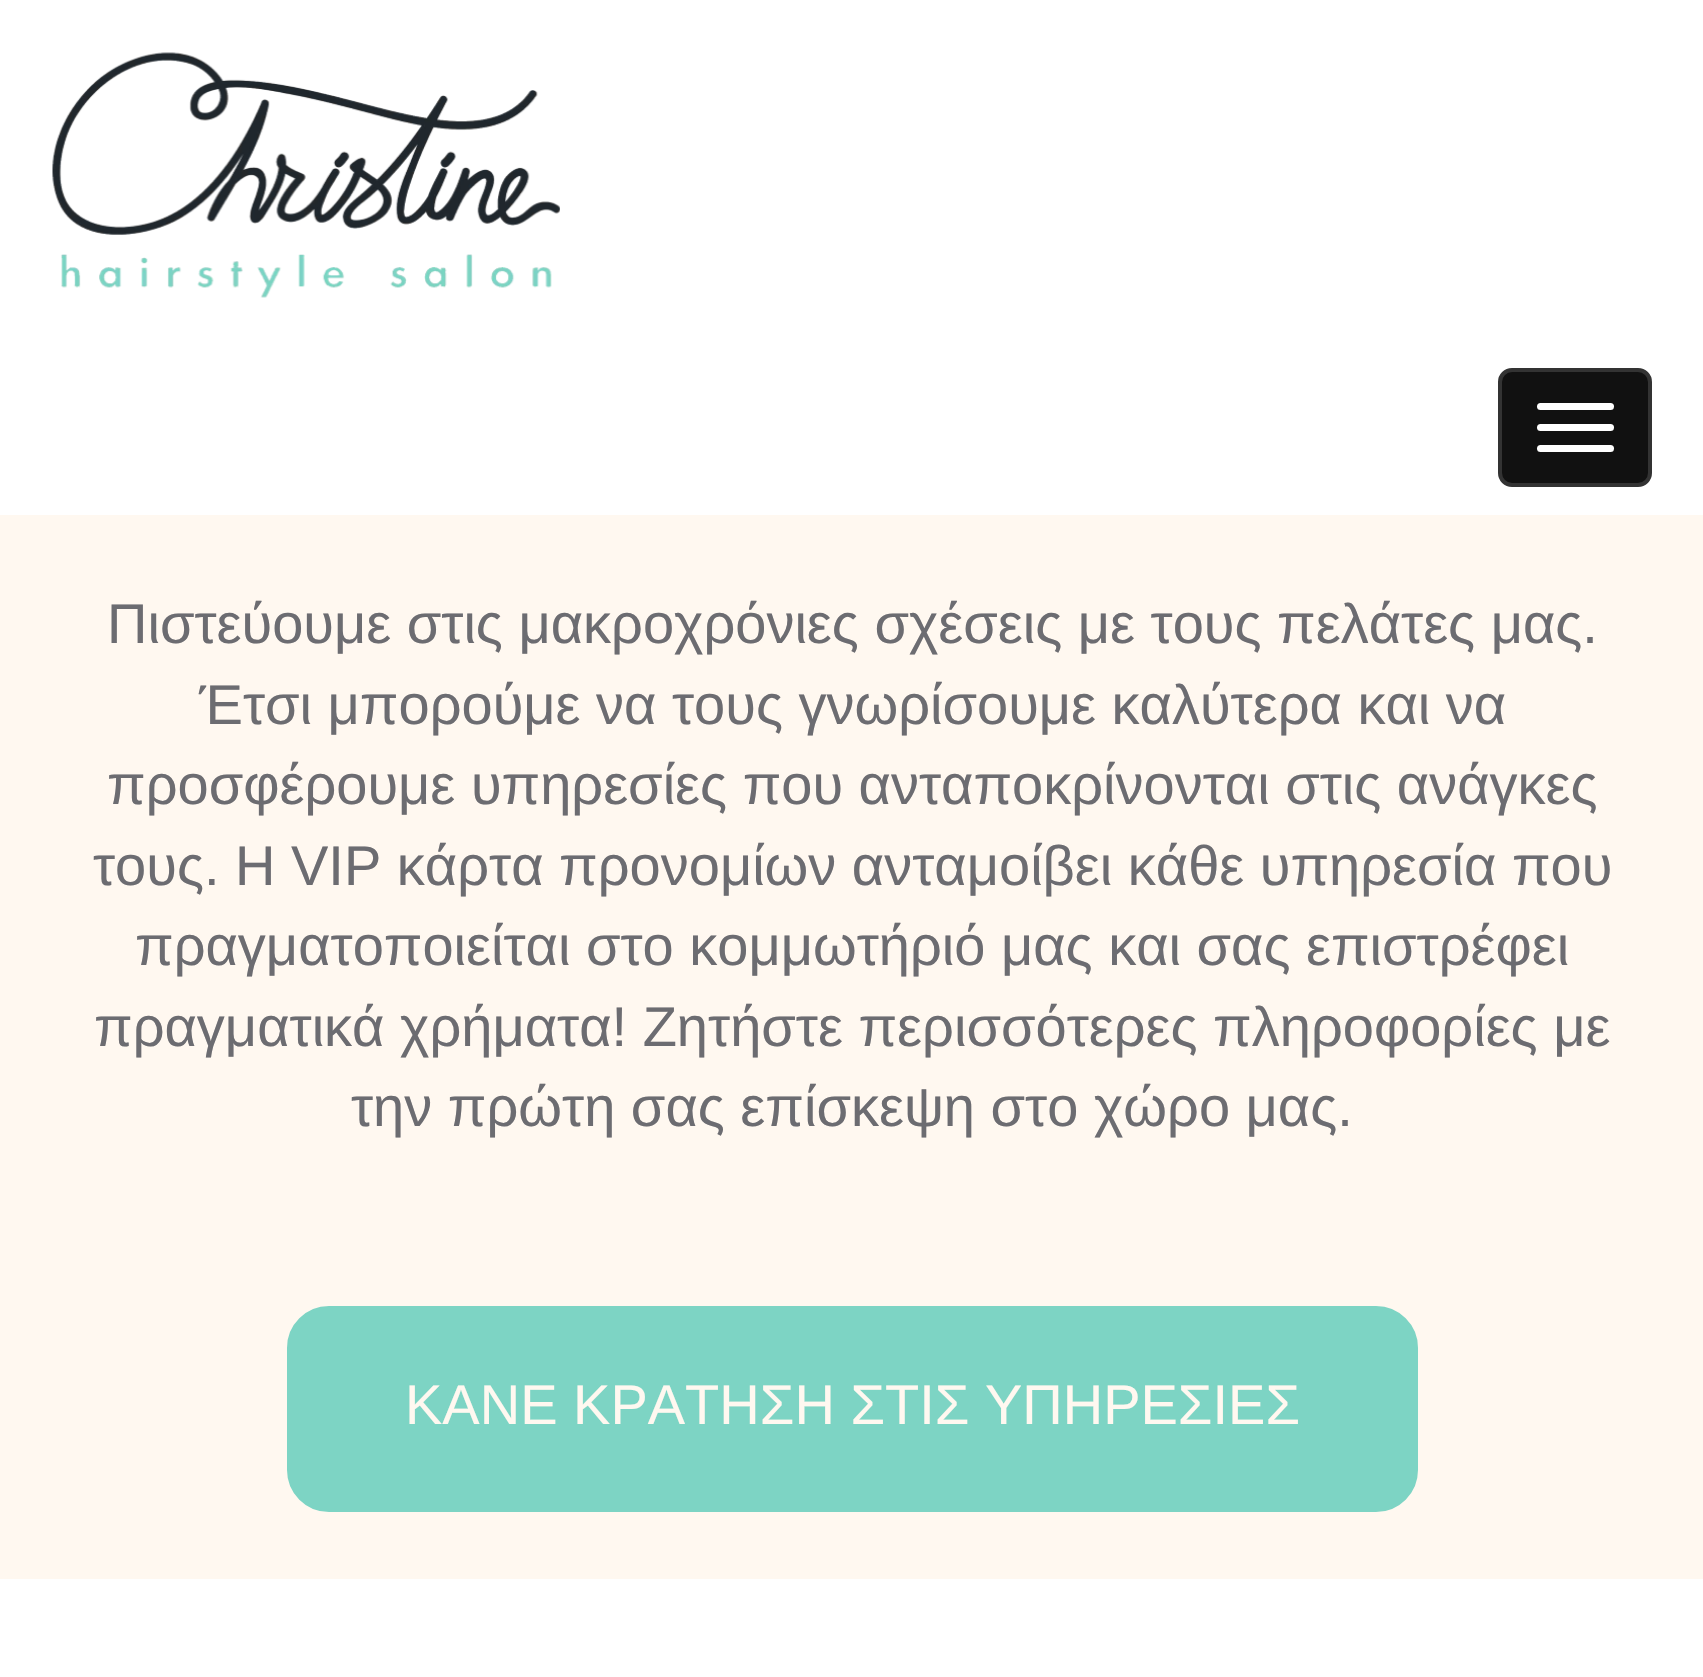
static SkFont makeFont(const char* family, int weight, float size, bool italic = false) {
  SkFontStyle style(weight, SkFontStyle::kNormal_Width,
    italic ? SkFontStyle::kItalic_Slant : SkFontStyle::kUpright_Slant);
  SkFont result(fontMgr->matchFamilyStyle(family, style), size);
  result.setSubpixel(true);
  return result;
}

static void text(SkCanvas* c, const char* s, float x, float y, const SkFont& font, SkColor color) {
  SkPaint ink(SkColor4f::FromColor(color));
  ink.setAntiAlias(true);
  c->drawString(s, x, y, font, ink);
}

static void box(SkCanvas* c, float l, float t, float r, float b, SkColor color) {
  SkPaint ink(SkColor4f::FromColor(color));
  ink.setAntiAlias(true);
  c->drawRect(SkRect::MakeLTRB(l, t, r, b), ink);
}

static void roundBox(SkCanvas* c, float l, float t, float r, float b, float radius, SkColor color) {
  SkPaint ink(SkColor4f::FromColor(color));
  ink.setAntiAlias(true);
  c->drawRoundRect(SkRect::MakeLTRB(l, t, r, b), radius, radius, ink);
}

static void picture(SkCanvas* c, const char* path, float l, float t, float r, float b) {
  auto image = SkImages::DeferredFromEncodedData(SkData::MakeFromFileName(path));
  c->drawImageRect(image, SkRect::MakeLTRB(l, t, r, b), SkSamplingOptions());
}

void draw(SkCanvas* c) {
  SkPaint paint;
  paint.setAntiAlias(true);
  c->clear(0xffffffff);
  picture(c, "img_01.png", 52, 52, 560, 298);
  paint.setColor(0xff111111);
  c->drawRoundRect(SkRect::MakeLTRB(1500, 370, 1650, 485), 12, 12, paint);
  paint.setStyle(SkPaint::kStroke_Style);
  paint.setStrokeWidth(4);
  paint.setColor(0xff333333);
  c->drawRoundRect(SkRect::MakeLTRB(1500, 370, 1650, 485), 12, 12, paint);
  roundBox(c, 1537, 403, 1614, 410, 3.5f, 0xffffffff);
  roundBox(c, 1537, 424, 1614, 431, 3.5f, 0xffffffff);
  roundBox(c, 1537, 445, 1614, 452, 3.5f, 0xffffffff);
  box(c, 0, 515, 1703, 1579, 0xfffff8f0);
  SkFont face1 = makeFont("Arimo", 400, 56);
  text(c, "Πιστεύουμε στις μακροχρόνιες σχέσεις με τους πελάτες μας.", 107, 643, face1, 0xff6c6c71);
  text(c, "Έτσι μπορούμε να τους γνωρίσουμε καλύτερα και να", 199, 724, face1, 0xff6c6c71);
  text(c, "προσφέρουμε υπηρεσίες που ανταποκρίνονται στις ανάγκες", 107, 804, face1, 0xff6c6c71);
  text(c, "τους. Η VIP κάρτα προνομίων ανταμοίβει κάθε υπηρεσία που", 93, 885, face1, 0xff6c6c71);
  text(c, "πραγματοποιείται στο κομμωτήριό μας και σας επιστρέφει", 135, 965, face1, 0xff6c6c71);
  text(c, "πραγματικά χρήματα! Ζητήστε περισσότερες πληροφορίες με", 94, 1046, face1, 0xff6c6c71);
  text(c, "την πρώτη σας επίσκεψη στο χώρο μας.", 351, 1126, face1, 0xff6c6c71);
  paint.setStyle(SkPaint::kFill_Style);
  paint.setColor(0xff7dd4c4);
  c->drawRoundRect(SkRect::MakeLTRB(290.5f, 1309.5f, 1414.5f, 1508.5f), 38.5f, 38.5f, paint);
  paint.setStyle(SkPaint::kStroke_Style);
  paint.setStrokeWidth(7);
  c->drawRoundRect(SkRect::MakeLTRB(290.5f, 1309.5f, 1414.5f, 1508.5f), 38.5f, 38.5f, paint);
  SkFont face2 = makeFont("Liberation Sans", 400, 56);
  text(c, "ΚΑΝΕ ΚΡΑΤΗΣΗ ΣΤΙΣ ΥΠΗΡΕΣΙΕΣ", 405, 1424, face2, 0xfffff8f0);
}
